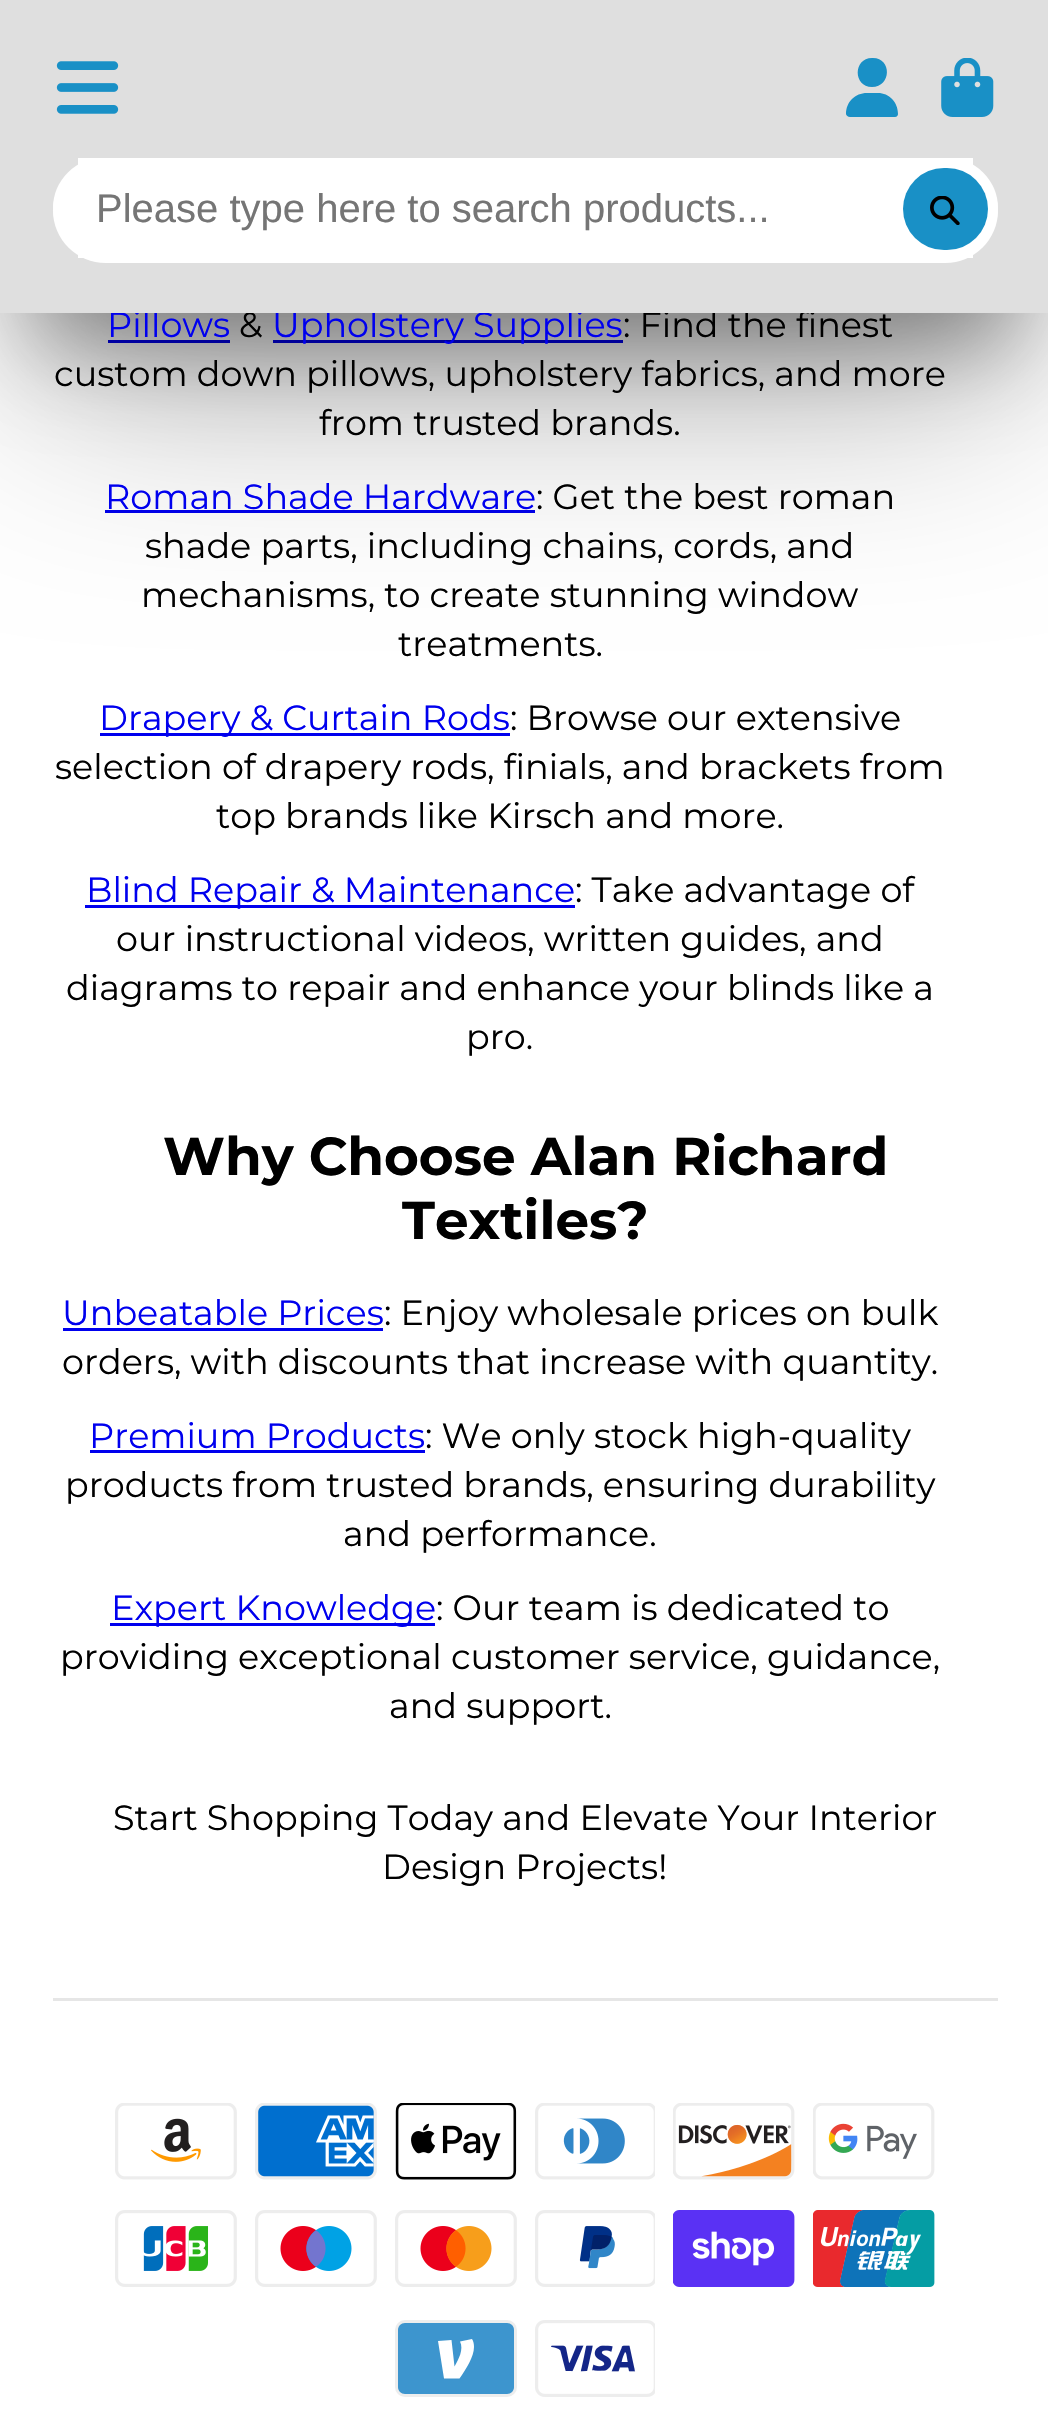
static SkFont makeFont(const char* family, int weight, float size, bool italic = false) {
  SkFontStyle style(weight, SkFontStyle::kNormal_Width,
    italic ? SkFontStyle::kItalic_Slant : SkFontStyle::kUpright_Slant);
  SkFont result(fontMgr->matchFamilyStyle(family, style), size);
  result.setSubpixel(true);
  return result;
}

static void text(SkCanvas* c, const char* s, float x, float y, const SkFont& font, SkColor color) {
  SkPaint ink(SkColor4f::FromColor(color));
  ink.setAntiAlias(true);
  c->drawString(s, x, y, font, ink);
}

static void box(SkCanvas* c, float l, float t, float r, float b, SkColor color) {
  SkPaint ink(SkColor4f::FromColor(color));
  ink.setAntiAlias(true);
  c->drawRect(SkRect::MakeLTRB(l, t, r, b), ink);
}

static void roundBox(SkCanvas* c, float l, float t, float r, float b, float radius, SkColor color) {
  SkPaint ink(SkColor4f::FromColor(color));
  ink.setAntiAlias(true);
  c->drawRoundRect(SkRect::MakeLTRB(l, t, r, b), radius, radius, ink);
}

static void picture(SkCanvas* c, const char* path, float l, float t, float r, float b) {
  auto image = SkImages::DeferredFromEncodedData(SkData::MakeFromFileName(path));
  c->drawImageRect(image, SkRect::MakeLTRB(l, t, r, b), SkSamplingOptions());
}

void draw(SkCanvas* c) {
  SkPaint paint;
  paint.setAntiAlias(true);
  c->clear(0xffffffff);
  box(c, 108, 340, 230, 343, 0xff0000ee);
  box(c, 273, 340, 623, 343, 0xff0000ee);
  paint.setColor(0x66000000);
  paint.setMaskFilter(SkMaskFilter::MakeBlur(kNormal_SkBlurStyle, 48));
  c->drawRect(SkRect::MakeLTRB(35, 100, 1015, 343), paint);
  paint.setMaskFilter(nullptr);
  box(c, 105, 510, 535, 513, 0xff0000ee);
  paint.setColor(0x4d000000);
  paint.setMaskFilter(SkMaskFilter::MakeBlur(kNormal_SkBlurStyle, 109.5f));
  c->drawRect(SkRect::MakeLTRB(35, 145, 1015, 388), paint);
  paint.setMaskFilter(nullptr);
  SkFont face1 = makeFont("Montserrat", 400, 35);
  text(c, "Pillows", 107, 337, face1, 0xff0000ee);
  text(c, "&", 239, 337, face1, 0xff000000);
  text(c, "Upholstery Supplies", 272, 337, face1, 0xff0000ee);
  text(c, ": Find the finest", 623, 337, face1, 0xff000000);
  box(c, 0, 0, 1048, 313, 0xffdfdfdf);
  picture(c, "img_01.png", 56, 61, 119, 114);
  paint.setColor(0xff1990c6);
  c->drawPath(SkPathBuilder().moveTo(872, 87).cubicTo(892, 87, 892, 57, 872, 58).cubicTo(853, 58, 853, 87, 872, 87).close().moveTo(867, 93).cubicTo(855, 93, 846, 102, 846, 114).cubicTo(846, 115, 848, 117, 850, 117).lineTo(895, 117).cubicTo(897, 117, 898, 115, 898, 114).cubicTo(898, 102, 889, 93, 878, 93).close().detach(), paint);
  picture(c, "img_02.png", 941, 58, 994, 117);
  roundBox(c, 53, 158, 998, 258, 50, 0xffffffff);
  box(c, 78, 158, 973, 258, 0xffffffff);
  roundBox(c, 53, 158, 998, 263, 52.5f, 0xffffffff);
  SkFont face2 = makeFont("Liberation Sans", 400, 40);
  text(c, "Please type here to search products...", 96, 222, face2, 0xff757575);
  roundBox(c, 903, 168, 988, 250, 41, 0xff1990c6);
  picture(c, "img_03.png", 930, 196, 960, 225);
  text(c, "custom down pillows, upholstery fabrics, and more", 54, 386, face1, 0xff000000);
  text(c, "from trusted brands.", 319, 435, face1, 0xff000000);
  text(c, "Roman Shade Hardware", 105, 509, face1, 0xff0000ee);
  text(c, ": Get the best roman", 536, 509, face1, 0xff000000);
  text(c, "shade parts, including chains, cords, and", 145, 558, face1, 0xff000000);
  text(c, "mechanisms, to create stunning window", 141, 607, face1, 0xff000000);
  text(c, "treatments.", 398, 656, face1, 0xff000000);
  box(c, 100, 733, 510, 736, 0xff0000ee);
  text(c, "Drapery & Curtain Rods", 99, 730, face1, 0xff0000ee);
  text(c, ": Browse our extensive", 510, 730, face1, 0xff000000);
  text(c, "selection of drapery rods, finials, and brackets from", 55, 779, face1, 0xff000000);
  text(c, "top brands like Kirsch and more.", 216, 828, face1, 0xff000000);
  box(c, 85, 905, 575, 908, 0xff0000ee);
  text(c, "Blind Repair & Maintenance", 86, 902, face1, 0xff0000ee);
  text(c, ": Take advantage of", 575, 902, face1, 0xff000000);
  text(c, "our instructional videos, written guides, and", 116, 951, face1, 0xff000000);
  text(c, "diagrams to repair and enhance your blinds like a", 66, 1000, face1, 0xff000000);
  text(c, "pro.", 466, 1049, face1, 0xff000000);
  SkFont face3 = makeFont("Montserrat", 700, 53.25f);
  text(c, "Why Choose Alan Richard", 163, 1175, face3, 0xff000000);
  text(c, "Textiles?", 402, 1239, face3, 0xff000000);
  text(c, "Unbeatable Prices", 62, 1325, face1, 0xff0000ee);
  box(c, 63, 1328, 383, 1331, 0xff0000ee);
  text(c, ": Enjoy wholesale prices on bulk", 384, 1325, face1, 0xff000000);
  text(c, "orders, with discounts that increase with quantity.", 62, 1374, face1, 0xff000000);
  text(c, "Premium Products", 89, 1448, face1, 0xff0000ee);
  box(c, 90, 1450, 425, 1453, 0xff0000ee);
  text(c, ": We only stock high-quality", 425, 1448, face1, 0xff000000);
  text(c, "products from trusted brands, ensuring durability", 65, 1497, face1, 0xff000000);
  text(c, "and performance.", 343, 1546, face1, 0xff000000);
  box(c, 110, 1623, 435, 1626, 0xff0000ee);
  text(c, "Expert Knowledge", 111, 1620, face1, 0xff0000ee);
  text(c, ": Our team is dedicated to", 436, 1620, face1, 0xff000000);
  text(c, "providing exceptional customer service, guidance,", 60, 1669, face1, 0xff000000);
  text(c, "and support.", 389, 1718, face1, 0xff000000);
  text(c, "Start Shopping Today and Elevate Your Interior", 113, 1830, face1, 0xff000000);
  text(c, "Design Projects!", 382, 1879, face1, 0xff000000);
  box(c, 53, 1998, 998, 2001, 0xffe6e6e6);
  picture(c, "img_04.png", 115, 2103, 237, 2180);
  picture(c, "img_05.png", 255, 2103, 377, 2180);
  picture(c, "img_06.png", 395, 2103, 517, 2180);
  picture(c, "img_07.png", 535, 2103, 655, 2180);
  picture(c, "img_08.png", 673, 2103, 795, 2180);
  picture(c, "img_09.png", 813, 2103, 935, 2180);
  picture(c, "img_10.png", 115, 2210, 237, 2287);
  picture(c, "img_11.png", 255, 2210, 377, 2287);
  picture(c, "img_12.png", 395, 2210, 517, 2287);
  picture(c, "img_13.png", 535, 2210, 655, 2287);
  picture(c, "img_14.png", 673, 2210, 795, 2287);
  picture(c, "img_15.png", 813, 2210, 935, 2287);
  roundBox(c, 395, 2320, 517, 2397, 10, 0xffededed);
  paint.setColor(0xff3d95ce);
  c->drawPath(SkPathBuilder(SkPathFillType::kEvenOdd).moveTo(507, 2323).cubicTo(511, 2323, 514, 2326, 514, 2330).lineTo(514, 2387).cubicTo(514, 2391, 511, 2394, 507, 2394).lineTo(405, 2394).cubicTo(401, 2394, 398, 2391, 398, 2387).lineTo(398, 2330).cubicTo(398, 2326, 401, 2323, 405, 2323).lineTo(507, 2323).detach(), paint);
  paint.setColor(0xffffffff);
  c->drawPath(SkPathBuilder().moveTo(474, 2347).cubicTo(474, 2356.5f, 466, 2369.5f, 459.5f, 2378.5f).lineTo(444, 2378.5f).lineTo(438, 2341).lineTo(451.5f, 2340).lineTo(454.5f, 2366.5f).cubicTo(458.5f, 2359.5f, 464, 2349.5f, 460, 2341.5f).lineTo(472, 2339).cubicTo(473.5f, 2341.5f, 474, 2343.5f, 474, 2347).close().detach(), paint);
  picture(c, "img_16.png", 535, 2320, 655, 2397);
}
